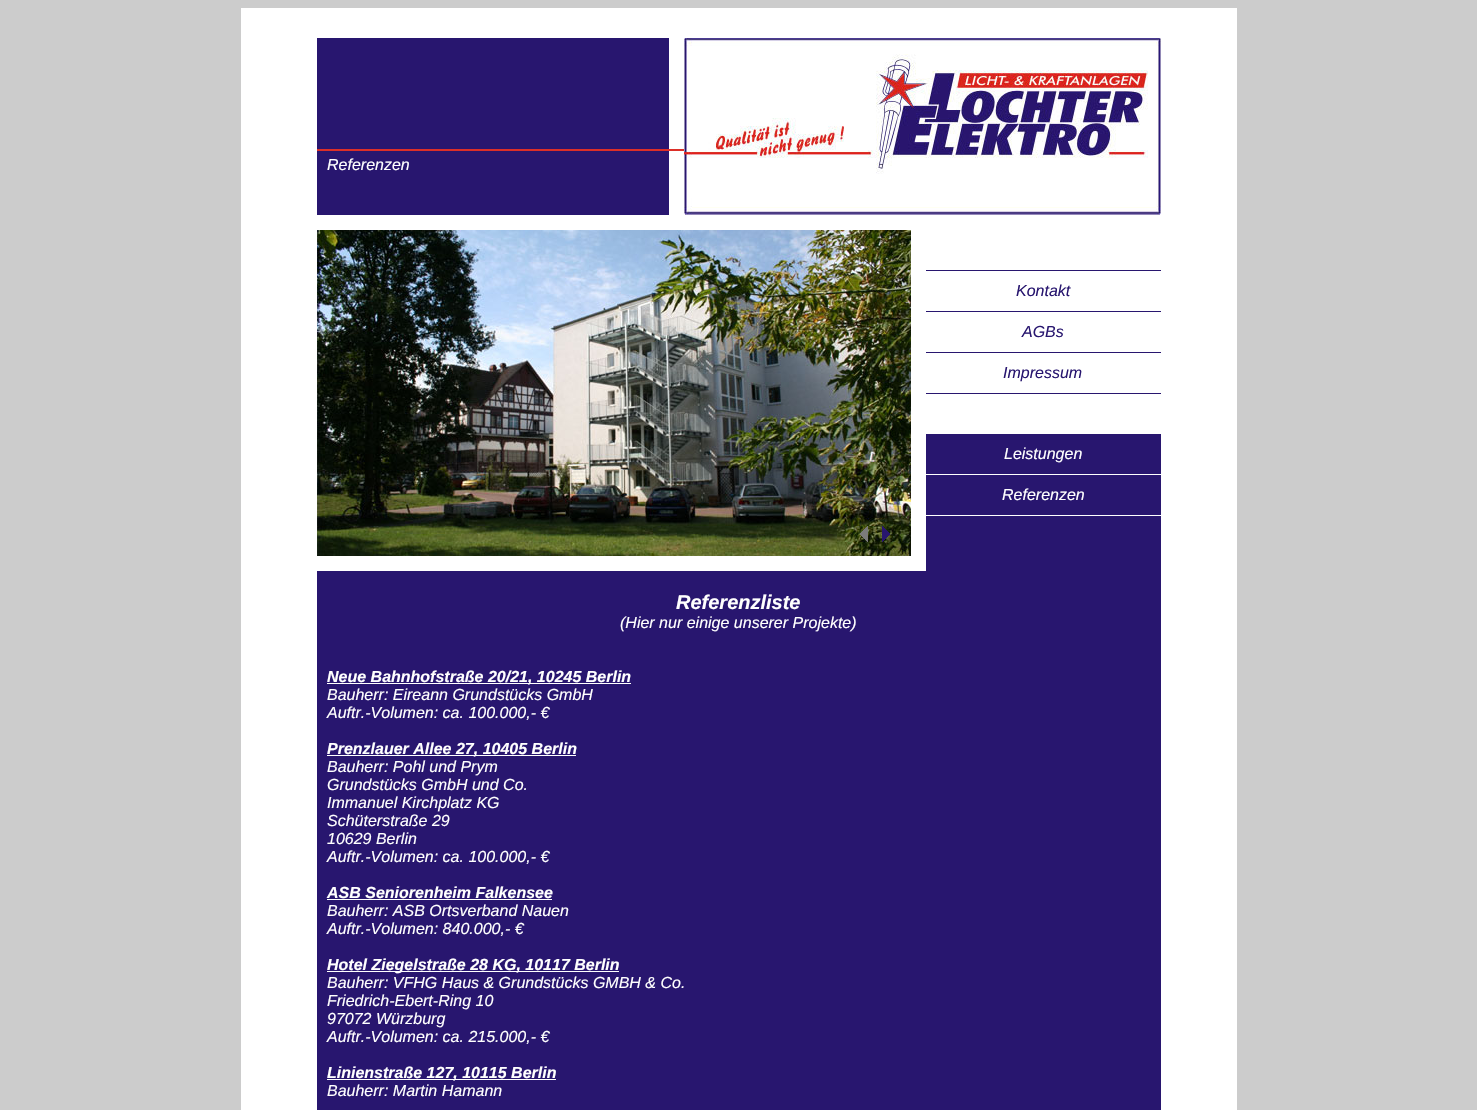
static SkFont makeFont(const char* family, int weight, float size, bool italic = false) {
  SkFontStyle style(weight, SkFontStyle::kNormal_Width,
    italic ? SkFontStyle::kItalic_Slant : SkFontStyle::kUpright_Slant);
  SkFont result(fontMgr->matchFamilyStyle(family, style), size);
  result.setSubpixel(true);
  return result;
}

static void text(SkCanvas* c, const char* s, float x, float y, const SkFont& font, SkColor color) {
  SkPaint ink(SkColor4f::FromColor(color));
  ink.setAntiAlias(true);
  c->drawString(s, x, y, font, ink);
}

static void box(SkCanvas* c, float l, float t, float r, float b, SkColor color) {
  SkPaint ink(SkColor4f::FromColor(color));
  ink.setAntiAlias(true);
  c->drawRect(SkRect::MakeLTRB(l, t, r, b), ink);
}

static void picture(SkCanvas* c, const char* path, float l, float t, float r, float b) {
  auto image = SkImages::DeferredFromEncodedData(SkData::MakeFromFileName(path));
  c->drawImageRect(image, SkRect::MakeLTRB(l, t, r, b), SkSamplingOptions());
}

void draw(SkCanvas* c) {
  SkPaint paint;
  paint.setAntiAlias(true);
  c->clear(0xffcccccc);
  box(c, 241, 8, 1237, 1110, 0xffffffff);
  box(c, 317, 38, 669, 149, 0xff28166f);
  picture(c, "img_01.png", 684, 38, 1161, 215);
  box(c, 317, 149, 684, 151, 0xffdc2f28);
  box(c, 317, 151, 669, 215, 0xff28166f);
  SkFont face1 = makeFont("Liberation Sans", 400, 16, true);
  text(c, "Referenzen", 327, 170, face1, 0xffffffff);
  picture(c, "img_02.png", 317, 230, 911, 556);
  box(c, 926, 270, 1161, 271, 0xff28166f);
  text(c, "Kontakt", 1016, 296, face1, 0xff28166f);
  box(c, 926, 311, 1161, 312, 0xff28166f);
  text(c, "AGBs", 1022, 337, face1, 0xff28166f);
  box(c, 926, 352, 1161, 353, 0xff28166f);
  text(c, "Impressum", 1003, 378, face1, 0xff28166f);
  box(c, 926, 393, 1161, 394, 0xff28166f);
  box(c, 926, 434, 1161, 474, 0xff28166f);
  text(c, "Leistungen", 1004, 459, face1, 0xffffffff);
  box(c, 926, 475, 1161, 515, 0xff28166f);
  text(c, "Referenzen", 1002, 500, face1, 0xffffffff);
  box(c, 926, 516, 1161, 571, 0xff28166f);
  box(c, 317, 571, 1161, 1110, 0xff28166f);
  picture(c, "img_03.png", 860, 526, 868, 542);
  picture(c, "img_04.png", 882, 526, 890, 542);
  SkFont face2 = makeFont("Liberation Sans", 700, 20, true);
  text(c, "Referenzliste", 676, 609, face2, 0xffffffff);
  text(c, "(Hier nur einige unserer Projekte)", 620, 628, face1, 0xffffffff);
  box(c, 327, 683, 631, 684, 0xffffffff);
  SkFont face3 = makeFont("Liberation Sans", 700, 16, true);
  text(c, "Neue Bahnhofstraße 20/21, 10245 Berlin", 327, 682, face3, 0xffffffff);
  text(c, "Bauherr: Eireann Grundstücks GmbH", 327, 700, face1, 0xffffffff);
  text(c, "Auftr.-Volumen: ca. 100.000,- €", 327, 718, face1, 0xffffffff);
  box(c, 327, 755, 576, 756, 0xffffffff);
  text(c, "Prenzlauer Allee 27, 10405 Berlin", 327, 754, face3, 0xffffffff);
  text(c, "Bauherr: Pohl und Prym", 327, 772, face1, 0xffffffff);
  text(c, "Grundstücks GmbH und Co.", 327, 790, face1, 0xffffffff);
  text(c, "Immanuel Kirchplatz KG", 327, 808, face1, 0xffffffff);
  text(c, "Schüterstraße 29", 327, 826, face1, 0xffffffff);
  text(c, "10629 Berlin", 327, 844, face1, 0xffffffff);
  text(c, "Auftr.-Volumen: ca. 100.000,- €", 327, 862, face1, 0xffffffff);
  text(c, "ASB Seniorenheim Falkensee", 327, 898, face3, 0xffffffff);
  box(c, 327, 899, 552, 900, 0xffffffff);
  text(c, "Bauherr: ASB Ortsverband Nauen", 327, 916, face1, 0xffffffff);
  text(c, "Auftr.-Volumen: 840.000,- €", 327, 934, face1, 0xffffffff);
  box(c, 327, 971, 619, 972, 0xffffffff);
  text(c, "Hotel Ziegelstraße 28 KG, 10117 Berlin", 327, 970, face3, 0xffffffff);
  text(c, "Bauherr: VFHG Haus & Grundstücks GMBH & Co.", 327, 988, face1, 0xffffffff);
  text(c, "Friedrich-Ebert-Ring 10", 327, 1006, face1, 0xffffffff);
  text(c, "97072 Würzburg", 327, 1024, face1, 0xffffffff);
  text(c, "Auftr.-Volumen: ca. 215.000,- €", 327, 1042, face1, 0xffffffff);
  box(c, 327, 1079, 556, 1080, 0xffffffff);
  text(c, "Linienstraße 127, 10115 Berlin", 327, 1078, face3, 0xffffffff);
  text(c, "Bauherr: Martin Hamann", 327, 1096, face1, 0xffffffff);
}
